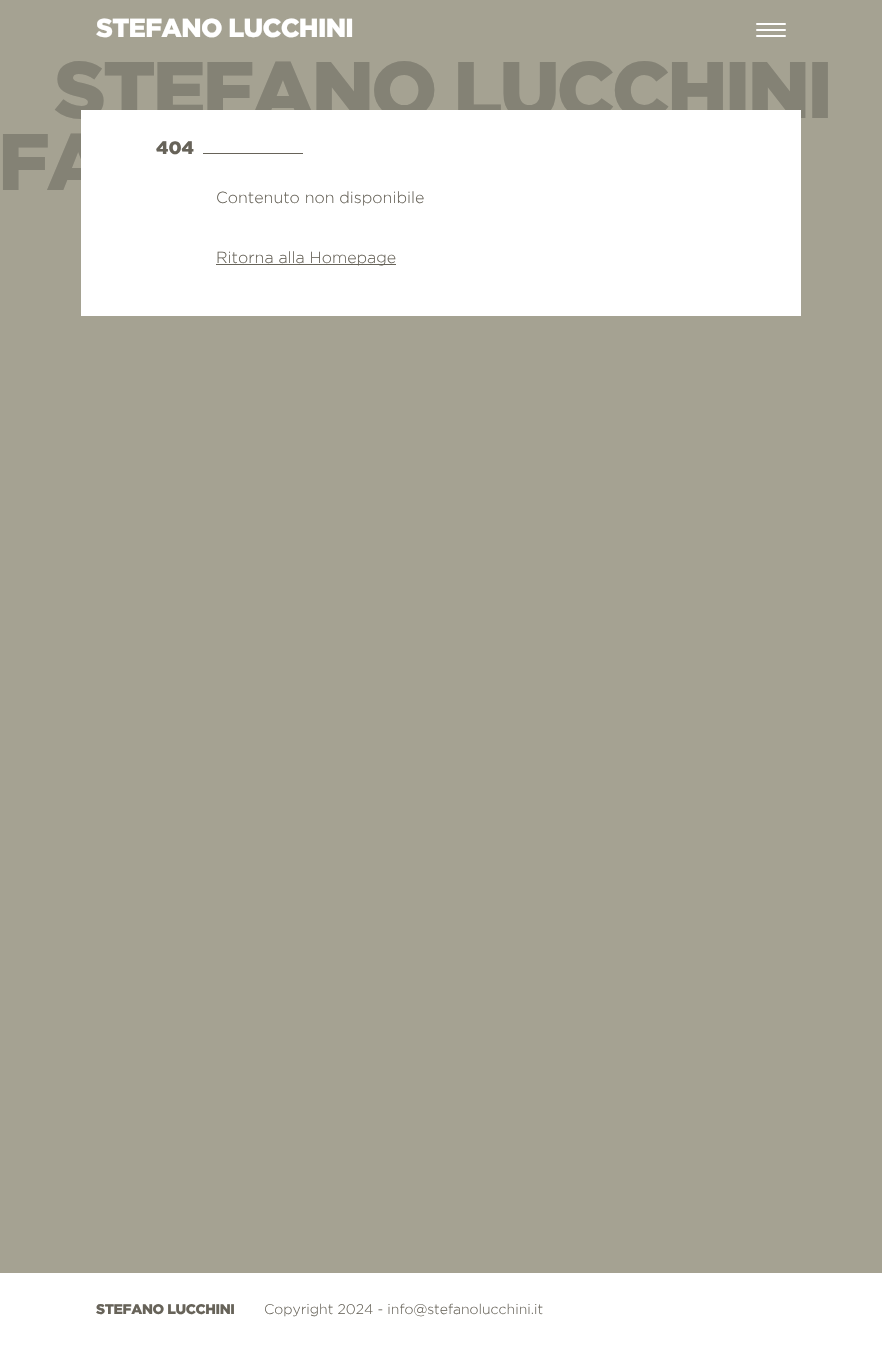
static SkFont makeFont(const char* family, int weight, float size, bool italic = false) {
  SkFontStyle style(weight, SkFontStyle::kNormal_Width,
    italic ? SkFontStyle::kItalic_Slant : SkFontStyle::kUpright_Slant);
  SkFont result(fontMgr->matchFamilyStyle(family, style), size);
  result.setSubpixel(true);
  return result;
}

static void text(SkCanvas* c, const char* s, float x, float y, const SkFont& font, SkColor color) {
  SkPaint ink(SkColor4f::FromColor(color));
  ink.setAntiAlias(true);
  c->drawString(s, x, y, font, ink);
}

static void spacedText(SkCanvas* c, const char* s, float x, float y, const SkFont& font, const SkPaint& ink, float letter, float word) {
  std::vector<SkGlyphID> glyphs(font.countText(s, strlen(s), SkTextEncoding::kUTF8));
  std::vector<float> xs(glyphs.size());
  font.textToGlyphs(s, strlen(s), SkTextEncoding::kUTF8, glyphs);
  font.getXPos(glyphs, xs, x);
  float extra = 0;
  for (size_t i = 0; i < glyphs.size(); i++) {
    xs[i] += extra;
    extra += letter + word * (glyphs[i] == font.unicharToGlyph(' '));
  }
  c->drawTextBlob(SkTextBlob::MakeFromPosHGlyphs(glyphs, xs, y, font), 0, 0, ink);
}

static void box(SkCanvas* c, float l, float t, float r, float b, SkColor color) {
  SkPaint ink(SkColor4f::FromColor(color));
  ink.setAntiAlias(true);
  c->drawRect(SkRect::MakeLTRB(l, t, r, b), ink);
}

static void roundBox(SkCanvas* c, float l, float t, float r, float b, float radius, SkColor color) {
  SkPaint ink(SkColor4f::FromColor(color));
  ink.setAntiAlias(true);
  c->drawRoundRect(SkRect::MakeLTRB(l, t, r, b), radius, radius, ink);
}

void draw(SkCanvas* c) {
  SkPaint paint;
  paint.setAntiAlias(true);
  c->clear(0xffa5a292);
  SkFont face1 = makeFont("Gotham", 900, 80);
  paint.setColor(0xff848275);
  spacedText(c, "STEFANO LUCCHINI", 54, 118, face1, paint, -3.25f, 0);
  box(c, 403, 60, 645, 61, 0xffa5a292);
  SkFont face2 = makeFont("Gotham", 900, 26);
  paint.setColor(0xffffffff);
  spacedText(c, "STEFANO LUCCHINI", 96, 37, face2, paint, -0.75f, 0);
  roundBox(c, 756, 29, 786, 31, 1, 0xffffffff);
  roundBox(c, 756, 23, 786, 25, 1, 0xffffffff);
  roundBox(c, 756, 35, 786, 37, 1, 0xffffffff);
  paint.setColor(0xff848275);
  spacedText(c, "FA", -2, 190, face1, paint, -3.25f, 0);
  box(c, 81, 110, 801, 316, 0xffffffff);
  SkFont face3 = makeFont("Gotham", 900, 18);
  text(c, "404", 156, 154, face3, 0xff676359);
  box(c, 203, 153, 303, 154, 0xff676359);
  SkFont face4 = makeFont("Gotham", 300, 16);
  text(c, "Contenuto non disponibile", 216, 203, face4, 0xff676359);
  box(c, 216, 264, 396, 265, 0xff676359);
  text(c, "Ritorna alla Homepage", 216, 263, face4, 0xff676359);
  box(c, 0, 1273, 882, 1347, 0xffffffff);
  SkFont face5 = makeFont("Gotham", 900, 14);
  paint.setColor(0xff676359);
  spacedText(c, "STEFANO LUCCHINI", 96, 1314, face5, paint, -0.4f, 0);
  SkFont face6 = makeFont("Gotham", 300, 14);
  text(c, "Copyright 2024 - info@stefanolucchini.it", 264, 1314, face6, 0xff676359);
}
